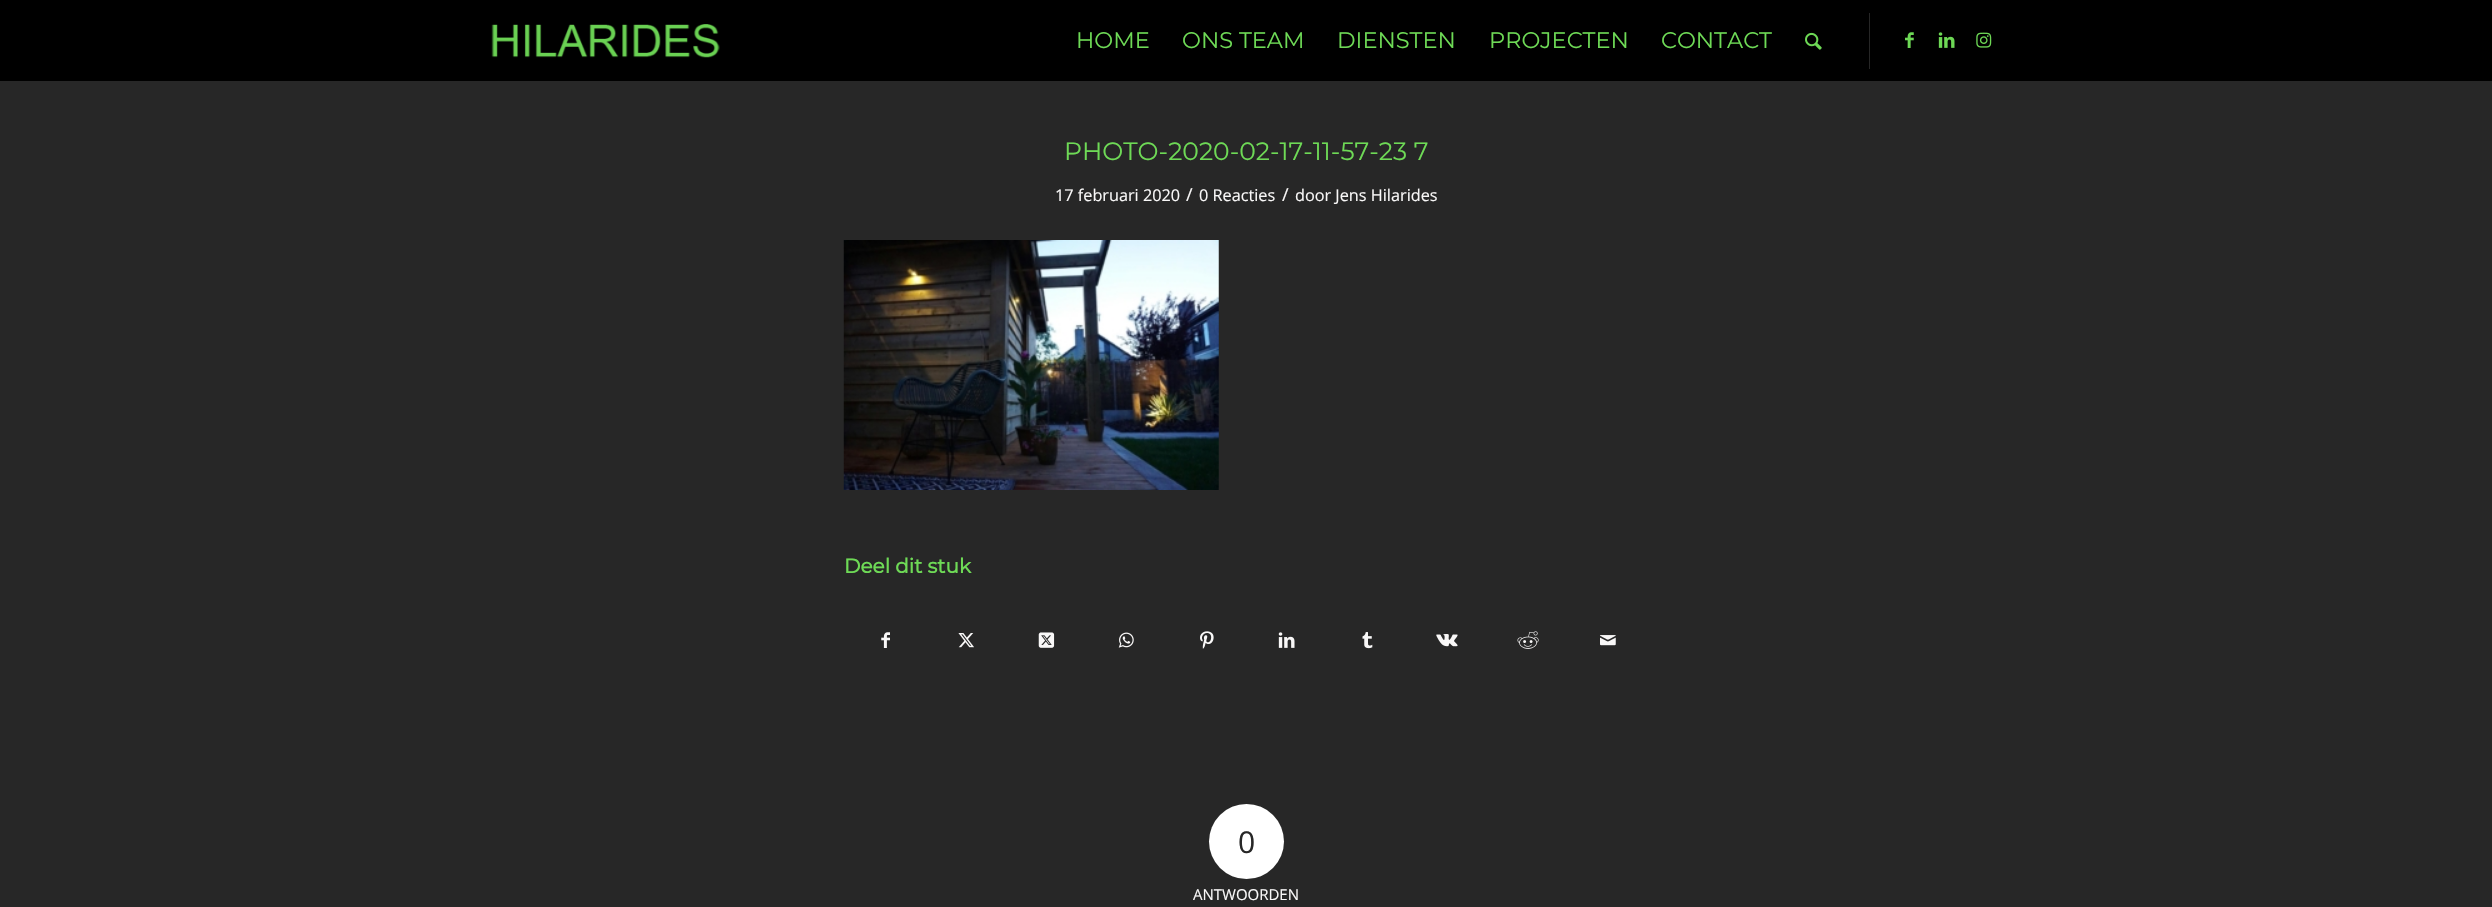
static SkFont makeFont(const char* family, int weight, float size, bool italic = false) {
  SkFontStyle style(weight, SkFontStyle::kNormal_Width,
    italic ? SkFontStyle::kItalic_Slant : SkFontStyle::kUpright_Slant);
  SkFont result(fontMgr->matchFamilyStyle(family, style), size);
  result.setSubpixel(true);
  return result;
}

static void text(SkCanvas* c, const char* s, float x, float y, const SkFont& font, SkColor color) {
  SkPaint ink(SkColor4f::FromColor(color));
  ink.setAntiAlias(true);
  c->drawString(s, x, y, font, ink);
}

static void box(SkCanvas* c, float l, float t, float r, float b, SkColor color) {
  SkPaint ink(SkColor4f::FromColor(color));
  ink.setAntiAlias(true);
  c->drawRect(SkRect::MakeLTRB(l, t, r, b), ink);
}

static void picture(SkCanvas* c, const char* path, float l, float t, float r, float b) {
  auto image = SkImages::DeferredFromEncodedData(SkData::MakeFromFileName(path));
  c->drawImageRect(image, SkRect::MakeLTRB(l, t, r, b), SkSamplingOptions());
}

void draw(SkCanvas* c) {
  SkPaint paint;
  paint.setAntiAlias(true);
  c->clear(0xff272727);
  box(c, 0, 0, 2492, 81, 0xff000000);
  picture(c, "img_01.png", 491, 24, 720, 58);
  box(c, 1869, 13, 1870, 69, 0xff262626);
  SkFont face1 = makeFont("Montserrat", 100, 22.5f);
  text(c, "HOME", 1076, 48, face1, 0xff6eda56);
  text(c, "ONS TEAM", 1182, 48, face1, 0xff6eda56);
  text(c, "DIENSTEN", 1337, 48, face1, 0xff6eda56);
  text(c, "PROJECTEN", 1489, 48, face1, 0xff6eda56);
  text(c, "CONTACT", 1661, 48, face1, 0xff6eda56);
  picture(c, "img_02.png", 1805, 32, 1822, 50);
  picture(c, "img_03.png", 1905, 32, 1914, 48);
  picture(c, "img_04.png", 1938, 32, 1955, 48);
  picture(c, "img_05.png", 1976, 32, 1992, 48);
  SkFont face2 = makeFont("Montserrat", 100, 25);
  text(c, "PHOTO-2020-02-17-11-57-23 7", 1064, 160, face2, 0xff6eda56);
  SkFont face3 = makeFont("Open Sans", 400, 16.25f);
  text(c, "17 februari 2020", 1055, 201, face3, 0xfff9f8f8);
  SkFont face4 = makeFont("Open Sans", 400, 18);
  text(c, "/", 1186, 201, face4, 0xfff9f8f8);
  text(c, "0 Reacties", 1199, 201, face3, 0xfff9f8f8);
  text(c, "/", 1282, 201, face4, 0xfff9f8f8);
  text(c, "door Jens Hilarides", 1295, 201, face3, 0xfff9f8f8);
  picture(c, "img_06.png", 843, 240, 1219, 490);
  SkFont face5 = makeFont("Montserrat", 700, 20);
  text(c, "Deel dit stuk", 844, 573, face5, 0xff6eda56);
  picture(c, "img_07.png", 881, 632, 890, 648);
  picture(c, "img_08.png", 958, 633, 974, 648);
  picture(c, "img_09.png", 1038, 632, 1055, 648);
  picture(c, "img_10.png", 1118, 632, 1134, 648);
  picture(c, "img_11.png", 1200, 631, 1214, 649);
  picture(c, "img_12.png", 1278, 632, 1295, 648);
  picture(c, "img_13.png", 1362, 632, 1373, 649);
  picture(c, "img_14.png", 1436, 634, 1458, 647);
  picture(c, "img_15.png", 1517, 631, 1539, 649);
  picture(c, "img_16.png", 1600, 635, 1616, 646);
  paint.setColor(0xffffffff);
  c->drawCircle(1246.5f, 841.5f, 37.5f, paint);
  SkFont face6 = makeFont("Open Sans", 400, 30);
  text(c, "0", 1238, 853, face6, 0xff272727);
  SkFont face7 = makeFont("Open Sans", 400, 15);
  text(c, "ANTWOORDEN", 1193, 900, face7, 0xfff9f8f8);
}
